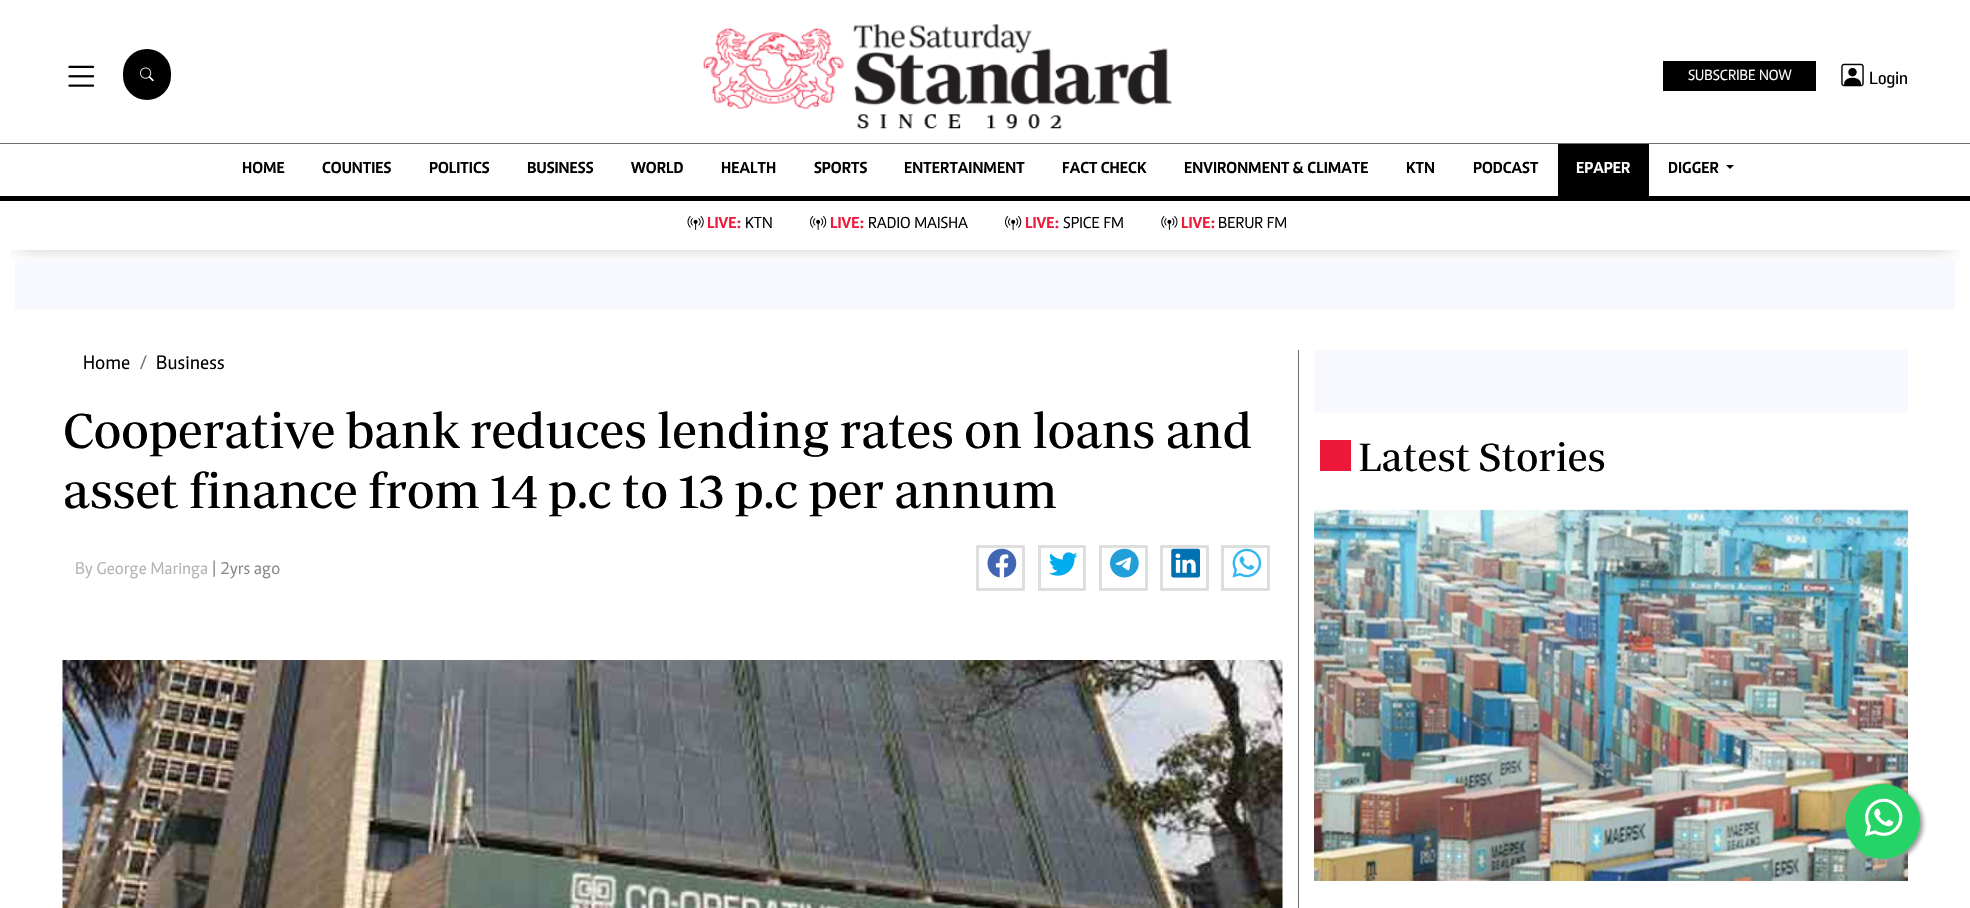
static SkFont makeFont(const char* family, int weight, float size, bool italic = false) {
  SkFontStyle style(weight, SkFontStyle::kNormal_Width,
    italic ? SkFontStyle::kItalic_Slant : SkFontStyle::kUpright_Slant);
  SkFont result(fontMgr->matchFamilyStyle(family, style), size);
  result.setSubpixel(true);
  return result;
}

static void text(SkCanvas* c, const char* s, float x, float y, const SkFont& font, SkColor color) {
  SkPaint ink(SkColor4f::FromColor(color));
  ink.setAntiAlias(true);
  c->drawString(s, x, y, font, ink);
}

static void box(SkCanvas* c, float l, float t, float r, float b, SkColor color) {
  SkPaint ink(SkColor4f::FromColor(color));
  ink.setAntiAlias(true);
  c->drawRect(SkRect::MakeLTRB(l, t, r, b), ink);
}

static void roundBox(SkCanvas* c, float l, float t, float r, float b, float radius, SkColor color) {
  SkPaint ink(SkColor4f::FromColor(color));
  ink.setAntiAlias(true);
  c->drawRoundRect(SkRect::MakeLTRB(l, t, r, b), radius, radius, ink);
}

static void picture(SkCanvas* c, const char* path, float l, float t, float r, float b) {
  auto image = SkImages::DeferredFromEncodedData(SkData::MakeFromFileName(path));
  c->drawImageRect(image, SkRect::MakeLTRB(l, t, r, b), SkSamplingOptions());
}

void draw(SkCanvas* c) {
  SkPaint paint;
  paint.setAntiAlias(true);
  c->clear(0xffffffff);
  picture(c, "img_01.png", 68, 65, 95, 87);
  roundBox(c, 123, 49, 171, 100, 24, 0xff000000);
  picture(c, "img_02.png", 140, 67, 154, 82);
  picture(c, "img_03.png", 703, 24, 1172, 129);
  box(c, 1663, 61, 1816, 91, 0xff000000);
  SkFont face1 = makeFont("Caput", 400, 15);
  text(c, "SUBSCRIBE NOW", 1688, 80, face1, 0xffffffff);
  picture(c, "img_04.png", 1841, 63, 1864, 87);
  SkFont face2 = makeFont("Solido", 500, 17.5f);
  text(c, "Login", 1869, 84, face2, 0xff000000);
  box(c, 0, 143, 1970, 144, 0xff6e6d6d);
  box(c, 0, 196, 1970, 201, 0xff000000);
  SkFont face3 = makeFont("Caput", 700, 16.25f);
  text(c, "HOME", 242, 173, face3, 0xff000000);
  text(c, "COUNTIES", 322, 173, face3, 0xff000000);
  text(c, "POLITICS", 429, 173, face3, 0xff000000);
  text(c, "BUSINESS", 527, 173, face3, 0xff000000);
  text(c, "WORLD", 631, 173, face3, 0xff000000);
  text(c, "HEALTH", 721, 173, face3, 0xff000000);
  text(c, "SPORTS", 814, 173, face3, 0xff000000);
  text(c, "ENTERTAINMENT", 904, 173, face3, 0xff000000);
  text(c, "FACT CHECK", 1062, 173, face3, 0xff000000);
  text(c, "ENVIRONMENT & CLIMATE", 1184, 173, face3, 0xff000000);
  text(c, "KTN", 1406, 173, face3, 0xff000000);
  text(c, "PODCAST", 1473, 173, face3, 0xff000000);
  box(c, 1558, 144, 1649, 196, 0xff000000);
  text(c, "EPAPER", 1576, 173, face3, 0xffffffff);
  text(c, "DIGGER", 1668, 173, face3, 0xff000000);
  paint.setColor(0xff000000);
  c->drawPath(SkPathBuilder().moveTo(1726, 165).lineTo(1734, 165).lineTo(1730, 169).close().detach(), paint);
  box(c, 15, 260, 1955, 310, 0xfff8f8ff);
  c->save();
  c->clipRect(SkRect::MakeLTRB(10, 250, 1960, 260));
  paint.setColor(0x8f000000);
  paint.setMaskFilter(SkMaskFilter::MakeBlur(kNormal_SkBlurStyle, 11));
  c->drawRect(SkRect::MakeLTRB(19, 230, 1951, 241), paint);
  paint.setMaskFilter(nullptr);
  c->restore();
  picture(c, "img_05.png", 687, 216, 704, 230);
  text(c, "LIVE:", 707, 228, face3, 0xffed1a3b);
  SkFont face4 = makeFont("Caput", 400, 16.25f);
  text(c, "KTN", 745, 228, face4, 0xff000000);
  picture(c, "img_06.png", 810, 216, 827, 230);
  text(c, "LIVE:", 830, 228, face3, 0xffed1a3b);
  text(c, "RADIO MAISHA", 868, 228, face4, 0xff000000);
  picture(c, "img_06.png", 1005, 216, 1022, 230);
  text(c, "LIVE:", 1025, 228, face3, 0xffed1a3b);
  text(c, "SPICE FM", 1063, 228, face4, 0xff000000);
  picture(c, "img_07.png", 1161, 216, 1178, 230);
  text(c, "LIVE:", 1181, 228, face3, 0xffed1a3b);
  text(c, "BERUR FM", 1218, 228, face4, 0xff000000);
  SkFont face5 = makeFont("Caput", 400, 20);
  text(c, "Home", 83, 369, face5, 0xff000000);
  text(c, "/", 140, 369, face5, 0xff6c757d);
  text(c, "Business", 156, 369, face5, 0xff000000);
  SkFont face6 = makeFont("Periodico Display", 400, 50);
  text(c, "Cooperative bank reduces lending rates on loans and", 63, 448, face6, 0xff000000);
  text(c, "asset finance from 14 p.c to 13 p.c per annum", 63, 508, face6, 0xff000000);
  SkFont face7 = makeFont("Caput", 400, 17.5f);
  text(c, "By George Maringa", 75, 574, face7, 0xffb1b4b7);
  text(c, "| 2yrs ago", 212, 574, face7, 0xff888888);
  paint.setStyle(SkPaint::kStroke_Style);
  paint.setStrokeWidth(3);
  paint.setColor(0xffdedede);
  c->drawRect(SkRect::MakeLTRB(977.5f, 546.5f, 1023.5f, 589.5f), paint);
  picture(c, "img_08.png", 987, 548, 1017, 578);
  c->drawRect(SkRect::MakeLTRB(1039.5f, 546.5f, 1084.5f, 589.5f), paint);
  picture(c, "img_09.png", 1049, 552, 1078, 576);
  c->drawRect(SkRect::MakeLTRB(1100.5f, 546.5f, 1146.5f, 589.5f), paint);
  picture(c, "img_10.png", 1110, 548, 1139, 578);
  c->drawRect(SkRect::MakeLTRB(1161.5f, 546.5f, 1207.5f, 589.5f), paint);
  picture(c, "img_11.png", 1171, 548, 1200, 578);
  c->drawRect(SkRect::MakeLTRB(1222.5f, 546.5f, 1268.5f, 589.5f), paint);
  picture(c, "img_12.png", 1232, 548, 1262, 578);
  picture(c, "img_13.png", 62, 660, 1283, 908);
  box(c, 1298, 350, 1299, 908, 0xff6e6d6d);
  box(c, 1314, 350, 1908, 413, 0xfff8f8ff);
  box(c, 1320, 440, 1351, 471, 0xffee193a);
  SkFont face8 = makeFont("Periodico Display", 400, 40);
  text(c, "Latest Stories", 1358, 471, face8, 0xff000000);
  picture(c, "img_14.png", 1314, 509, 1908, 881);
  paint.setStyle(SkPaint::kFill_Style);
  paint.setColor(0xff999999);
  paint.setMaskFilter(SkMaskFilter::MakeBlur(kNormal_SkBlurStyle, 2));
  c->drawRoundRect(SkRect::MakeLTRB(1848, 786, 1923, 861), 37.5f, 37.5f, paint);
  paint.setMaskFilter(nullptr);
  paint.setColor(0xff25d366);
  c->drawCircle(1882.5f, 821.5f, 37.5f, paint);
  picture(c, "img_15.png", 1865, 798, 1903, 837);
}
